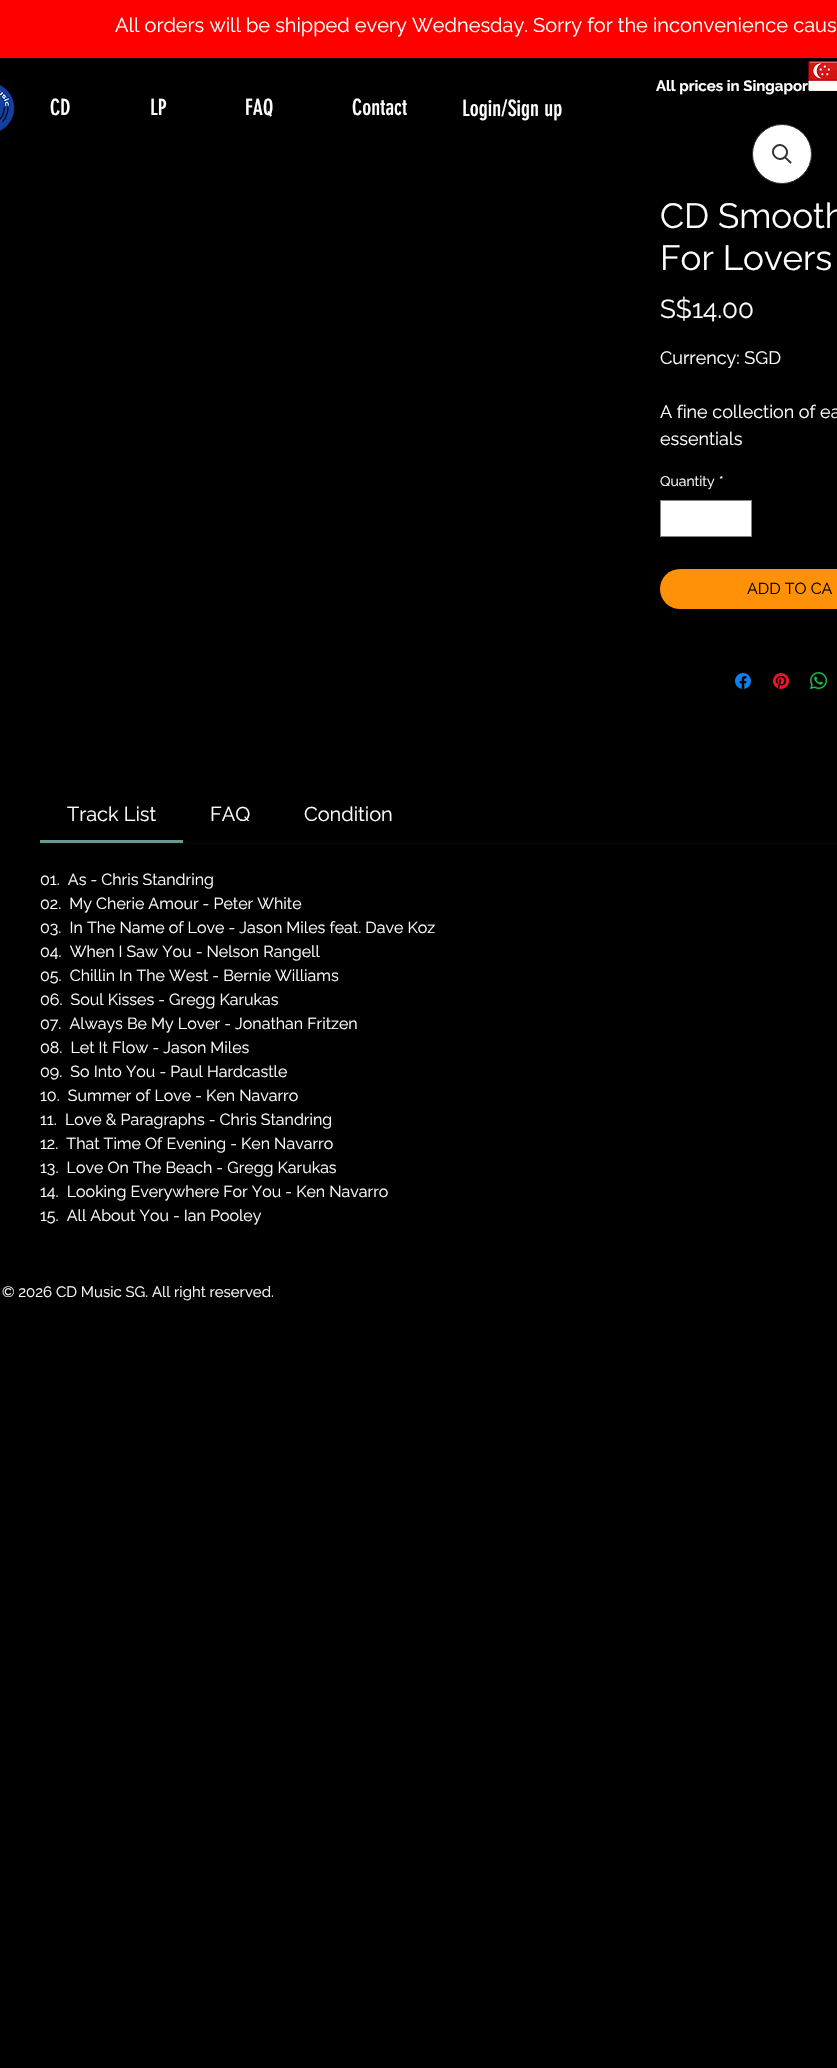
static SkFont makeFont(const char* family, int weight, float size, bool italic = false) {
  SkFontStyle style(weight, SkFontStyle::kNormal_Width,
    italic ? SkFontStyle::kItalic_Slant : SkFontStyle::kUpright_Slant);
  SkFont result(fontMgr->matchFamilyStyle(family, style), size);
  result.setSubpixel(true);
  return result;
}

static void text(SkCanvas* c, const char* s, float x, float y, const SkFont& font, SkColor color) {
  SkPaint ink(SkColor4f::FromColor(color));
  ink.setAntiAlias(true);
  c->drawString(s, x, y, font, ink);
}

static void box(SkCanvas* c, float l, float t, float r, float b, SkColor color) {
  SkPaint ink(SkColor4f::FromColor(color));
  ink.setAntiAlias(true);
  c->drawRect(SkRect::MakeLTRB(l, t, r, b), ink);
}

static void roundBox(SkCanvas* c, float l, float t, float r, float b, float radius, SkColor color) {
  SkPaint ink(SkColor4f::FromColor(color));
  ink.setAntiAlias(true);
  c->drawRoundRect(SkRect::MakeLTRB(l, t, r, b), radius, radius, ink);
}

static void picture(SkCanvas* c, const char* path, float l, float t, float r, float b) {
  auto image = SkImages::DeferredFromEncodedData(SkData::MakeFromFileName(path));
  c->drawImageRect(image, SkRect::MakeLTRB(l, t, r, b), SkSamplingOptions());
}

void draw(SkCanvas* c) {
  SkPaint paint;
  paint.setAntiAlias(true);
  c->clear(0xff000000);
  box(c, 0, 0, 837, 58, 0xffff0000);
  SkFont face1 = makeFont("Raleway", 400, 20);
  text(c, "All orders will be shipped every Wednesday. Sorry for the inconvenience caus", 115, 32, face1, 0xffffffff);
  SkFont face2 = makeFont("Raleway", 700, 15);
  text(c, "All prices in Singapor", 656, 91, face2, 0xffffffff);
  picture(c, "img_01.png", 808, 61, 837, 91);
  picture(c, "img_02.png", 0, 85, 15, 131);
  SkFont face3 = makeFont("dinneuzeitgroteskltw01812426", 400, 22);
  text(c, "CD", 50, 115, face3, 0xffffffff);
  text(c, "LP", 150, 115, face3, 0xffffffff);
  text(c, "FAQ", 245, 115, face3, 0xffffffff);
  text(c, "Contact", 352, 115, face3, 0xffffffff);
  text(c, "Login/Sign up", 462, 116, face3, 0xffffffff);
  SkFont face4 = makeFont("Raleway", 400, 35);
  text(c, "CD Smooth", 660, 228, face4, 0xffffffff);
  text(c, "For Lovers", 660, 270, face4, 0xffffffff);
  SkFont face5 = makeFont("Raleway", 400, 26);
  text(c, "S$14.00", 660, 318, face5, 0xffffffff);
  SkFont face6 = makeFont("Raleway", 400, 18);
  text(c, "Currency: SGD", 660, 364, face6, 0xffffffff);
  text(c, "A fine collection of ea", 660, 418, face6, 0xffffffff);
  text(c, "essentials", 660, 445, face6, 0xffffffff);
  SkFont face7 = makeFont("Raleway", 400, 14);
  text(c, "Quantity", 660, 486, face7, 0xffffffff);
  text(c, "*", 719, 486, face7, 0xffffffff);
  paint.setColor(0xffffffff);
  c->drawRect(SkRect::MakeLTRB(660.5f, 500.5f, 751.5f, 536.5f), paint);
  paint.setStyle(SkPaint::kStroke_Style);
  paint.setStrokeWidth(1);
  paint.setColor(0xff838383);
  c->drawRect(SkRect::MakeLTRB(660.5f, 500.5f, 751.5f, 536.5f), paint);
  roundBox(c, 660, 569, 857, 609, 20, 0xffff9108);
  SkFont face8 = makeFont("Raleway", 400, 16);
  text(c, "ADD TO CA", 747, 594, face8, 0xff000000);
  picture(c, "img_03.png", 735, 673, 751, 689);
  picture(c, "img_04.png", 773, 673, 789, 689);
  picture(c, "img_05.png", 810, 672, 827, 689);
  box(c, 40, 843, 837, 844, 0xff0a0a0a);
  box(c, 40, 840, 183, 843, 0xff6d9794);
  text(c, "Track List", 67, 821, face1, 0xffffffff);
  text(c, "FAQ", 210, 821, face1, 0xffffffff);
  text(c, "Condition", 304, 821, face1, 0xffffffff);
  text(c, "01.  As - Chris Standring", 40, 885, face8, 0xffffffff);
  text(c, "02.  My Cherie Amour - Peter White", 40, 909, face8, 0xffffffff);
  text(c, "03.  In The Name of Love - Jason Miles feat. Dave Koz", 40, 933, face8, 0xffffffff);
  text(c, "04.  When I Saw You - Nelson Rangell", 40, 957, face8, 0xffffffff);
  text(c, "05.  Chillin In The West - Bernie Williams", 40, 981, face8, 0xffffffff);
  text(c, "06.  Soul Kisses - Gregg Karukas", 40, 1005, face8, 0xffffffff);
  text(c, "07.  Always Be My Lover - Jonathan Fritzen", 40, 1029, face8, 0xffffffff);
  text(c, "08.  Let It Flow - Jason Miles", 40, 1053, face8, 0xffffffff);
  text(c, "09.  So Into You - Paul Hardcastle", 40, 1077, face8, 0xffffffff);
  text(c, "10.  Summer of Love - Ken Navarro", 40, 1101, face8, 0xffffffff);
  text(c, "11.  Love & Paragraphs - Chris Standring", 40, 1125, face8, 0xffffffff);
  text(c, "12.  That Time Of Evening - Ken Navarro", 40, 1149, face8, 0xffffffff);
  text(c, "13.  Love On The Beach - Gregg Karukas", 40, 1173, face8, 0xffffffff);
  text(c, "14.  Looking Everywhere For You - Ken Navarro", 40, 1197, face8, 0xffffffff);
  text(c, "15.  All About You - Ian Pooley", 40, 1221, face8, 0xffffffff);
  SkFont face9 = makeFont("Raleway", 400, 15);
  text(c, "© 2026 CD Music SG. All right reserved.", 2, 1297, face9, 0xffffffff);
  paint.setStyle(SkPaint::kFill_Style);
  paint.setColor(0xffffffff);
  c->drawCircle(782, 154, 29.5f, paint);
  paint.setStyle(SkPaint::kStroke_Style);
  paint.setColor(0xff333333);
  c->drawCircle(782, 154, 29.5f, paint);
  paint.setStrokeWidth(2);
  c->drawPath(SkPathBuilder().moveTo(775, 147).cubicTo(781.5f, 140.5f, 791.5f, 150.5f, 785, 157).cubicTo(778.5f, 163.5f, 768.5f, 153.5f, 775, 147).close().detach(), paint);
  paint.setStyle(SkPaint::kFill_Style);
  c->drawPath(SkPathBuilder().moveTo(784, 157.5f).lineTo(785.5f, 156.5f).lineTo(791.5f, 162).cubicTo(792, 163, 790.5f, 164, 790, 163.5f).close().detach(), paint);
}
